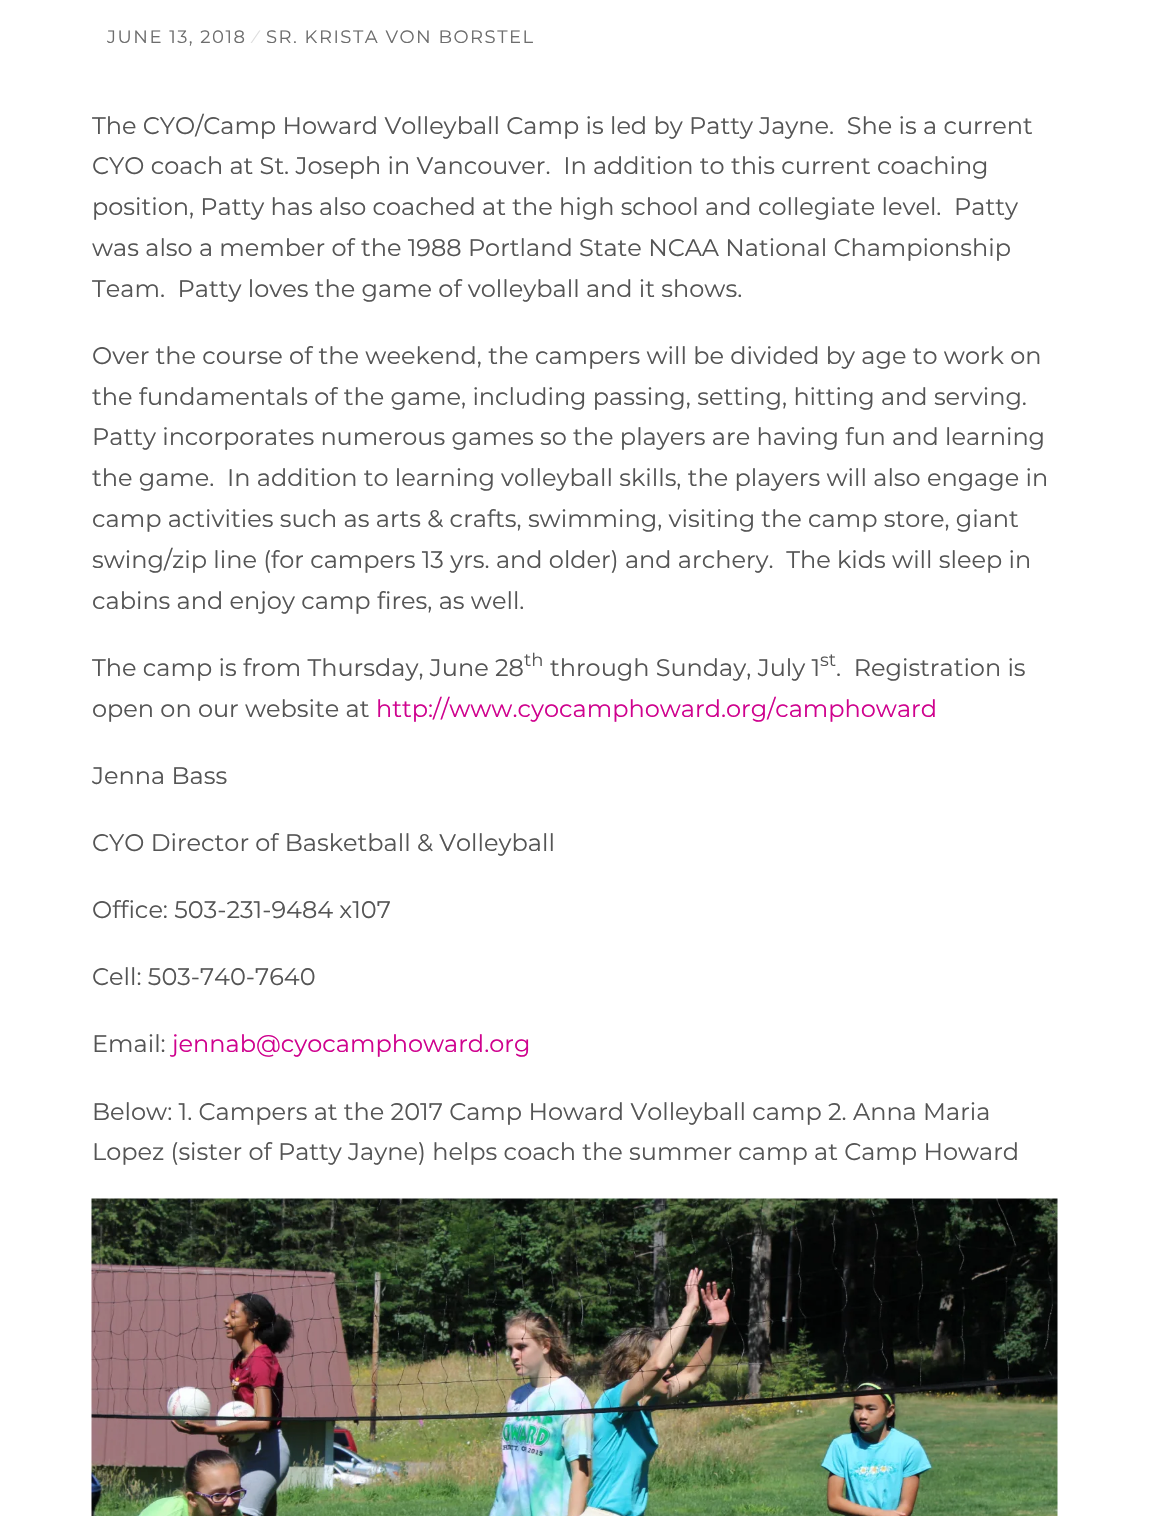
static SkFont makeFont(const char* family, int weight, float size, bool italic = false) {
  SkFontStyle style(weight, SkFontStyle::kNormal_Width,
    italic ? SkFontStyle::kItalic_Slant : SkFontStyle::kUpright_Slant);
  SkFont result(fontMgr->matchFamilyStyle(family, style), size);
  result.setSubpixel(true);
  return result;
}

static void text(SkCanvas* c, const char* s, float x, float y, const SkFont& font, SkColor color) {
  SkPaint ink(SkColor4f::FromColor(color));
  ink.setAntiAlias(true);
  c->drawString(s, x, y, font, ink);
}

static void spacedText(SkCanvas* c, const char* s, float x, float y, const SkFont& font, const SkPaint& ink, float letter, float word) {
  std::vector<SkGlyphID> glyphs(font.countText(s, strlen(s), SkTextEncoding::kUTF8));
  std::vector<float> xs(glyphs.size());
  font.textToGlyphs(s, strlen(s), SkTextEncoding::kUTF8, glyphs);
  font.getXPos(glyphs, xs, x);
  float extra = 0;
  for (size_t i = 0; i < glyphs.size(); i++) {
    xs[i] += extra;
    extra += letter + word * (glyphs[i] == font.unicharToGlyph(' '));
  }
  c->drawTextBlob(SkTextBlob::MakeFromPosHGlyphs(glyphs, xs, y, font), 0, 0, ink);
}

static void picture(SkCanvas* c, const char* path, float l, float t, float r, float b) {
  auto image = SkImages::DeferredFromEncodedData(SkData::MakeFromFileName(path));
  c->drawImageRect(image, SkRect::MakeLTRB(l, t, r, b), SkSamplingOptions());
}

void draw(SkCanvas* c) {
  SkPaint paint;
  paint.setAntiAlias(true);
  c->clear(0xffffffff);
  SkFont face1 = makeFont("Montserrat", 400, 18);
  paint.setColor(0xff6d6d6d);
  spacedText(c, "JUNE 13, 2018", 107, 43, face1, paint, 1.5f, 0);
  paint.setColor(0xffdddddd);
  spacedText(c, "⁄", 254, 43, face1, paint, 1.5f, 0);
  paint.setColor(0xff6d6d6d);
  spacedText(c, "SR. KRISTA VON BORSTEL", 266, 43, face1, paint, 1.5f, 0);
  SkFont face2 = makeFont("Montserrat", 400, 24);
  text(c, "The CYO/Camp Howard Volleyball Camp is led by Patty Jayne.  She is a current", 92, 134, face2, 0xff555555);
  text(c, "CYO coach at St. Joseph in Vancouver.  In addition to this current coaching", 92, 174, face2, 0xff555555);
  text(c, "position, Patty has also coached at the high school and collegiate level.  Patty", 92, 215, face2, 0xff555555);
  text(c, "was also a member of the 1988 Portland State NCAA National Championship", 92, 256, face2, 0xff555555);
  text(c, "Team.  Patty loves the game of volleyball and it shows.", 92, 297, face2, 0xff555555);
  text(c, "Over the course of the weekend, the campers will be divided by age to work on", 92, 364, face2, 0xff555555);
  text(c, "the fundamentals of the game, including passing, setting, hitting and serving.", 92, 405, face2, 0xff555555);
  text(c, "Patty incorporates numerous games so the players are having fun and learning", 92, 445, face2, 0xff555555);
  text(c, "the game.  In addition to learning volleyball skills, the players will also engage in", 92, 486, face2, 0xff555555);
  text(c, "camp activities such as arts & crafts, swimming, visiting the camp store, giant", 92, 527, face2, 0xff555555);
  text(c, "swing/zip line (for campers 13 yrs. and older) and archery.  The kids will sleep in", 92, 568, face2, 0xff555555);
  text(c, "cabins and enjoy camp fires, as well.", 92, 609, face2, 0xff555555);
  text(c, "The camp is from Thursday, June 28", 92, 676, face2, 0xff555555);
  text(c, "th", 524, 666, face1, 0xff555555);
  text(c, "through Sunday, July 1", 550, 676, face2, 0xff555555);
  text(c, "st", 820, 666, face1, 0xff555555);
  text(c, ".  Registration is", 836, 676, face2, 0xff555555);
  text(c, "open on our website at", 92, 717, face2, 0xff555555);
  text(c, "http://www.cyocamphoward.org/camphoward", 376, 717, face2, 0xffcf028e);
  text(c, "Jenna Bass", 92, 784, face2, 0xff555555);
  text(c, "CYO Director of Basketball & Volleyball", 92, 851, face2, 0xff555555);
  text(c, "Office: 503-231-9484 x107", 92, 918, face2, 0xff555555);
  text(c, "Cell: 503-740-7640", 92, 985, face2, 0xff555555);
  text(c, "Email:", 92, 1052, face2, 0xff555555);
  text(c, "jennab@cyocamphoward.org", 172, 1052, face2, 0xffcf028e);
  text(c, "Below: 1. Campers at the 2017 Camp Howard Volleyball camp 2. Anna Maria", 92, 1120, face2, 0xff555555);
  text(c, "Lopez (sister of Patty Jayne) helps coach the summer camp at Camp Howard", 92, 1160, face2, 0xff555555);
  picture(c, "img_01.png", 91, 1198, 1058, 1516);
}
